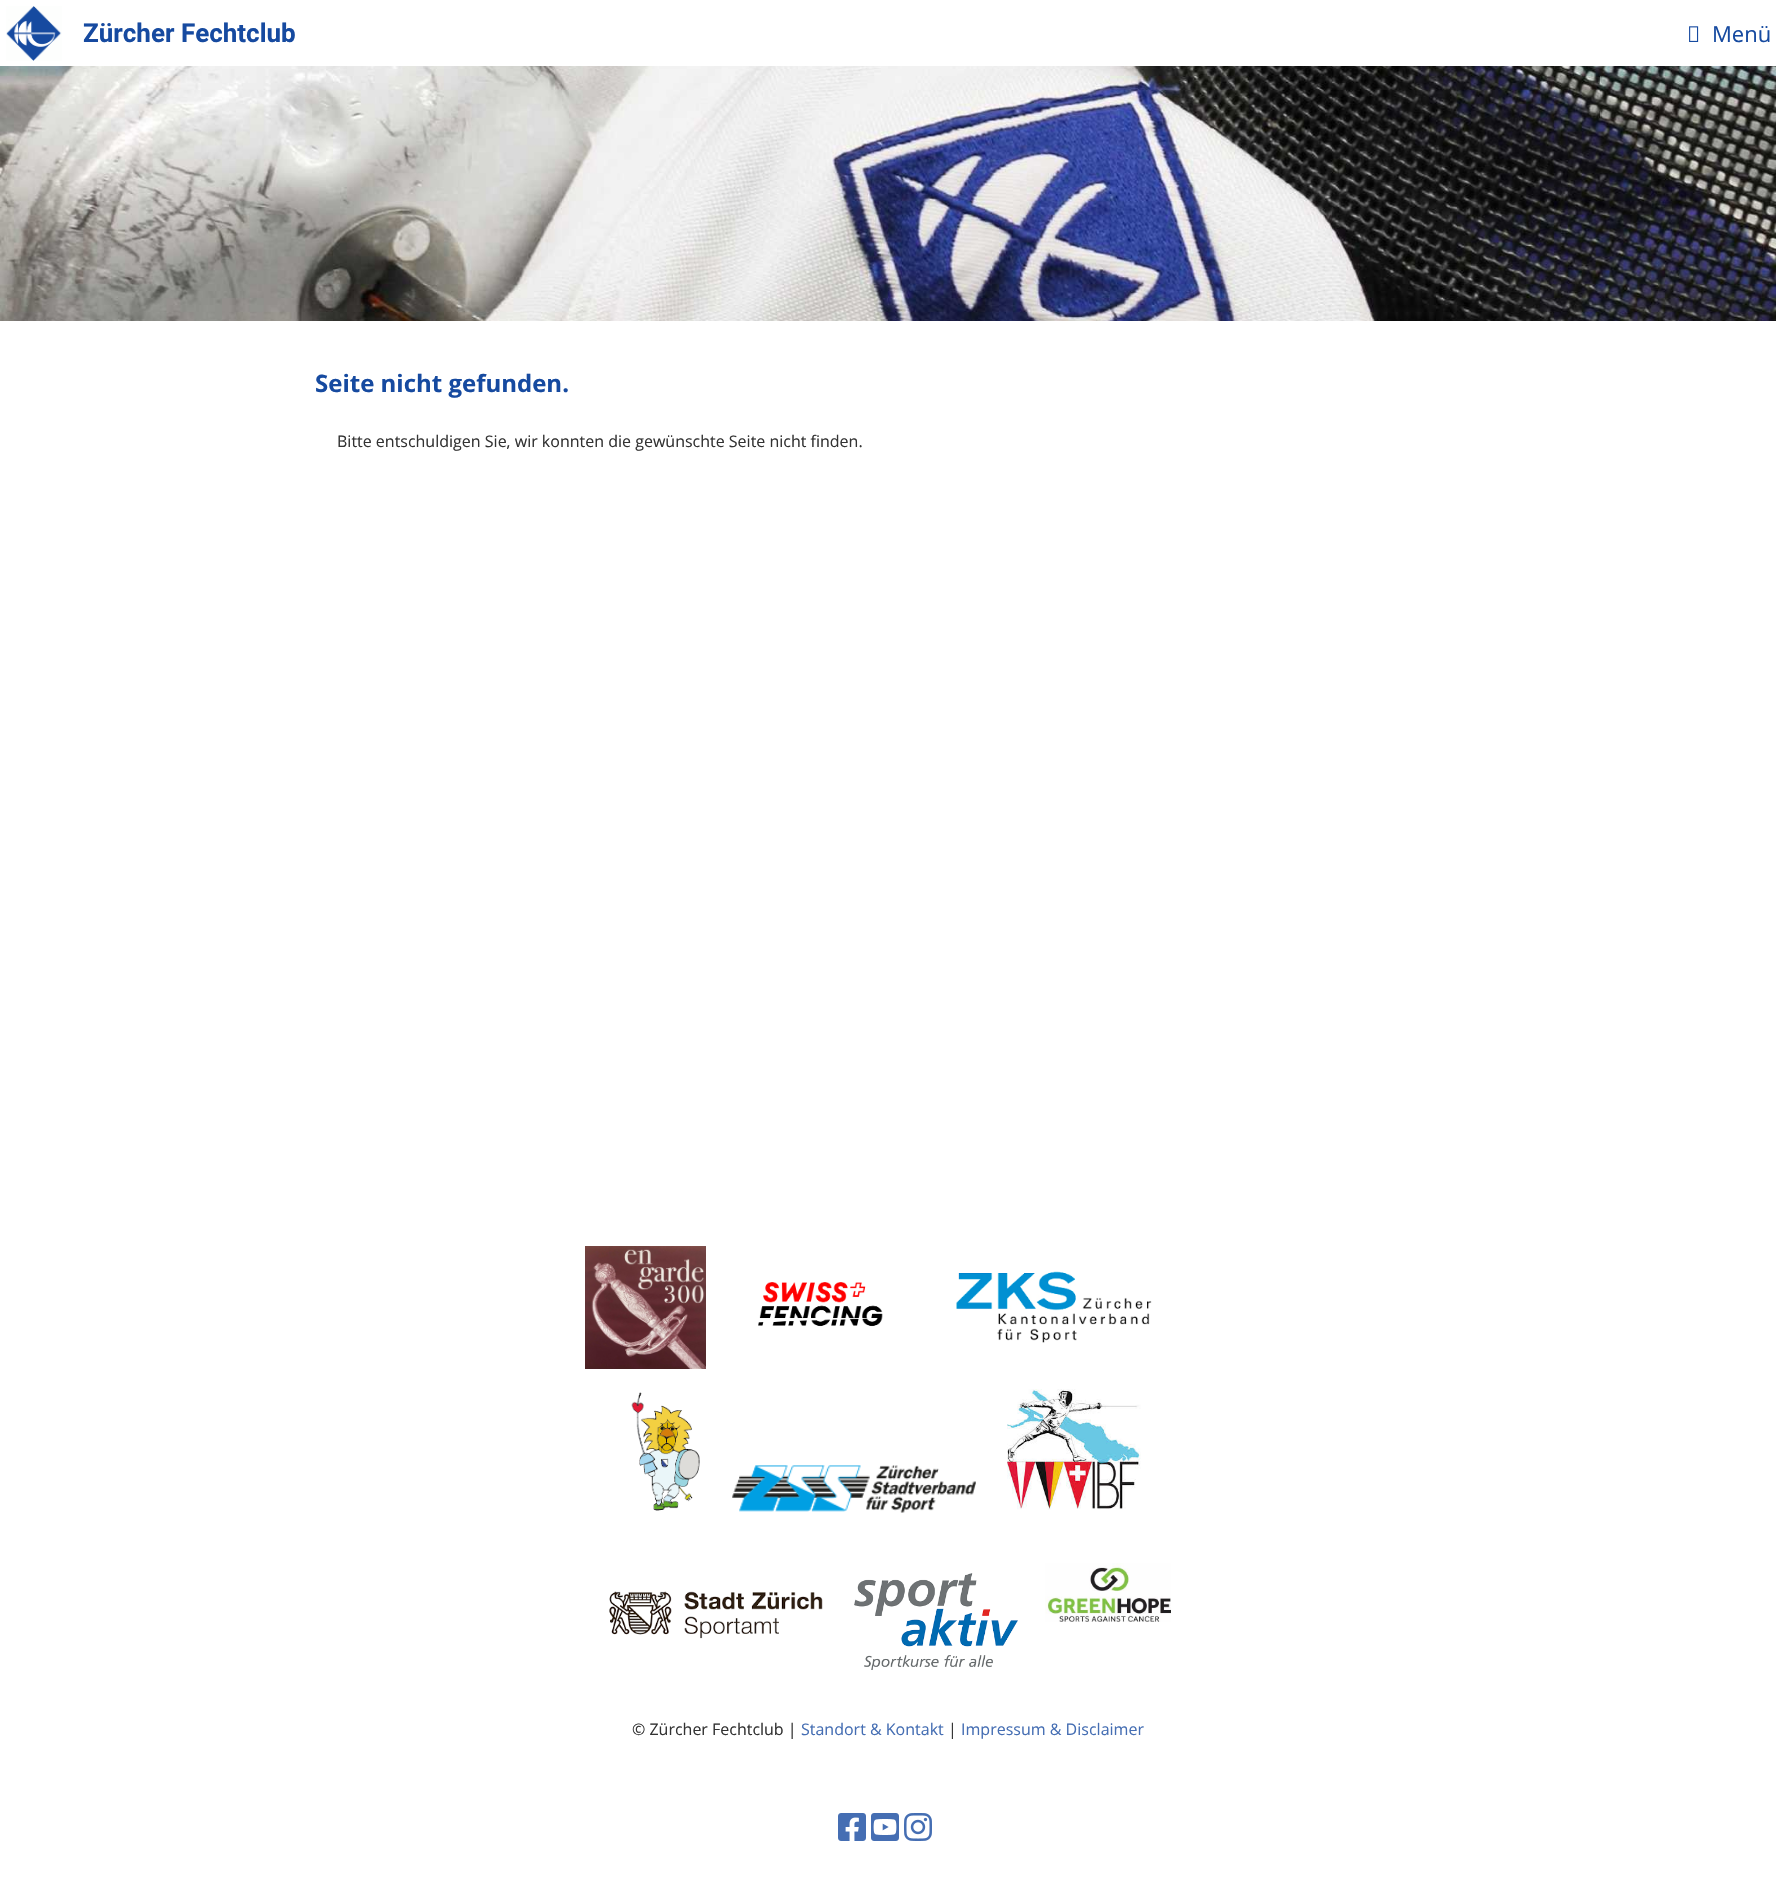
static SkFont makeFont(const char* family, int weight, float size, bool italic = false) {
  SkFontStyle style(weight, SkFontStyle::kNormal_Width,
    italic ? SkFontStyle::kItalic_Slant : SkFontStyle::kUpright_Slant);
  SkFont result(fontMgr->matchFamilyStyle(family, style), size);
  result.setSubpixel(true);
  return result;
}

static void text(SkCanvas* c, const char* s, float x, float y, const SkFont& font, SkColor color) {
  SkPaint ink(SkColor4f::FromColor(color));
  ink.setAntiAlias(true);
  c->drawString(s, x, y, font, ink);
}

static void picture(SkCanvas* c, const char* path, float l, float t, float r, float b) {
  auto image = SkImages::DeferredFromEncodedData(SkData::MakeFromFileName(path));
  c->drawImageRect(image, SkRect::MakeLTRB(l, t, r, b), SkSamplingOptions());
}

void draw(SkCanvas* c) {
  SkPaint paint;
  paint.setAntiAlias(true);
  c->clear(0xffffffff);
  picture(c, "img_01.png", 6, 6, 62, 61);
  SkFont face1 = makeFont("Roboto", 700, 26);
  text(c, "Zürcher Fechtclub", 83, 42, face1, 0xff164aa0);
  picture(c, "img_02.png", 1689, 26, 1699, 42);
  SkFont face2 = makeFont("Open Sans", 400, 22);
  text(c, "Menü", 1712, 42, face2, 0xff164aa0);
  picture(c, "img_03.png", 0, 66, 1776, 321);
  SkFont face3 = makeFont("Open Sans", 700, 24);
  text(c, "Seite nicht gefunden.", 315, 392, face3, 0xff164aa0);
  SkFont face4 = makeFont("Open Sans", 400, 16);
  text(c, "Bitte entschuldigen Sie, wir konnten die gewünschte Seite nicht finden.", 337, 447, face4, 0xff333333);
  picture(c, "img_04.png", 585, 1246, 706, 1369);
  picture(c, "img_05.png", 758, 1282, 883, 1327);
  picture(c, "img_06.png", 956, 1271, 1152, 1343);
  picture(c, "img_07.png", 631, 1392, 700, 1511);
  picture(c, "img_08.png", 732, 1465, 976, 1513);
  picture(c, "img_09.png", 1007, 1389, 1141, 1510);
  picture(c, "img_10.png", 609, 1591, 823, 1639);
  picture(c, "img_11.png", 854, 1573, 1018, 1670);
  picture(c, "img_12.png", 1045, 1563, 1171, 1622);
  text(c, "© Zürcher Fechtclub |", 632, 1735, face4, 0xff333333);
  text(c, "Standort & Kontakt", 801, 1735, face4, 0xff456eb3);
  text(c, "|", 948, 1735, face4, 0xff333333);
  text(c, "Impressum & Disclaimer", 961, 1735, face4, 0xff456eb3);
  picture(c, "img_13.png", 838, 1813, 866, 1841);
  picture(c, "img_14.png", 871, 1813, 899, 1841);
  picture(c, "img_15.png", 904, 1813, 932, 1841);
}
